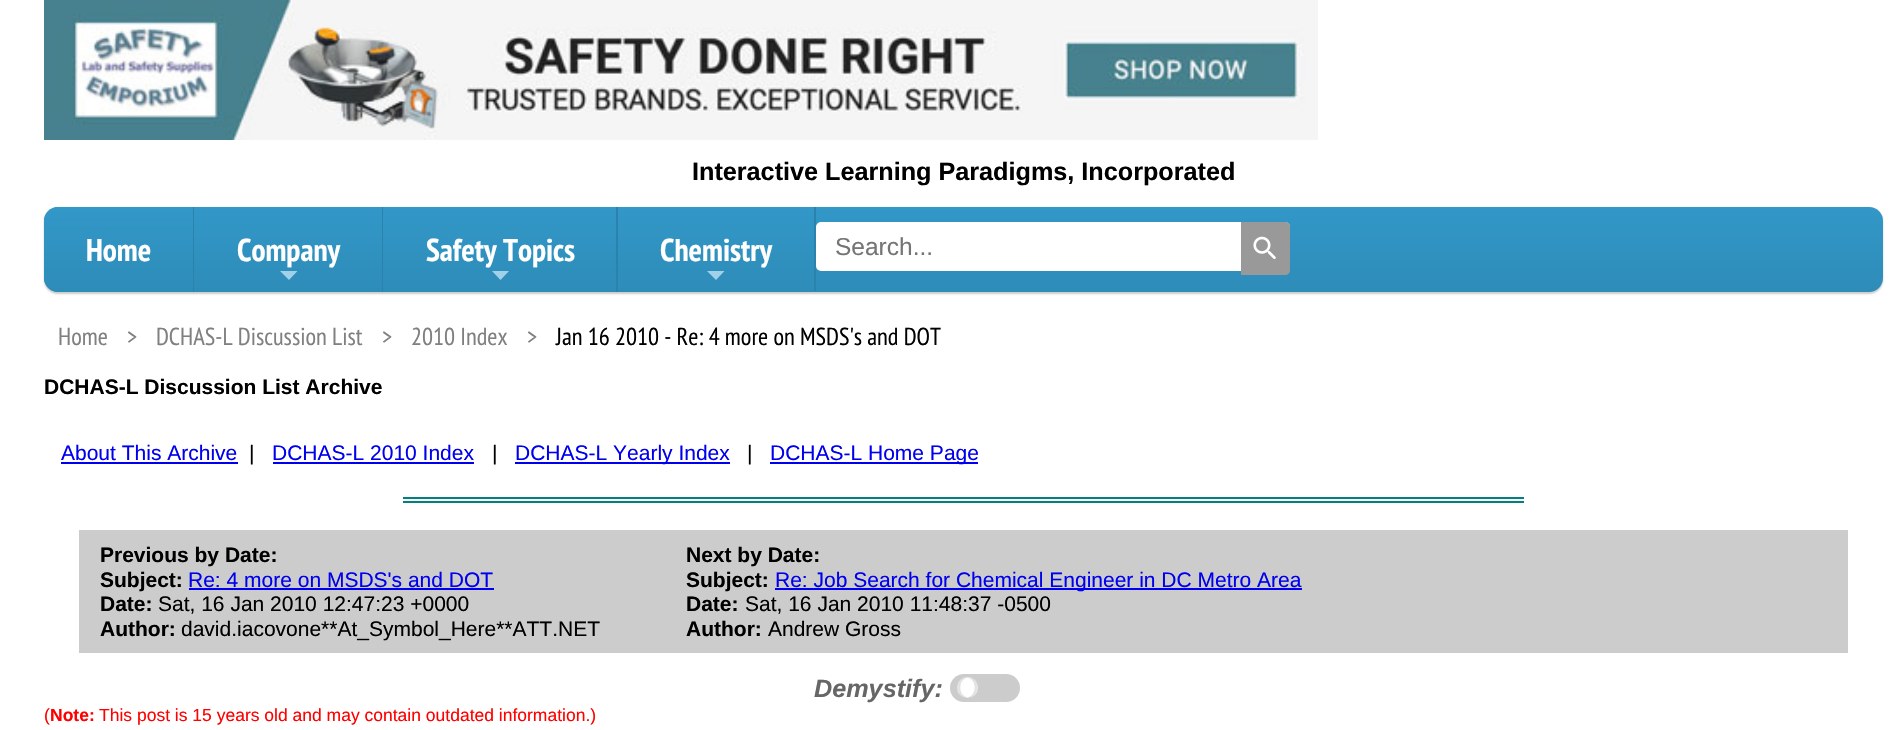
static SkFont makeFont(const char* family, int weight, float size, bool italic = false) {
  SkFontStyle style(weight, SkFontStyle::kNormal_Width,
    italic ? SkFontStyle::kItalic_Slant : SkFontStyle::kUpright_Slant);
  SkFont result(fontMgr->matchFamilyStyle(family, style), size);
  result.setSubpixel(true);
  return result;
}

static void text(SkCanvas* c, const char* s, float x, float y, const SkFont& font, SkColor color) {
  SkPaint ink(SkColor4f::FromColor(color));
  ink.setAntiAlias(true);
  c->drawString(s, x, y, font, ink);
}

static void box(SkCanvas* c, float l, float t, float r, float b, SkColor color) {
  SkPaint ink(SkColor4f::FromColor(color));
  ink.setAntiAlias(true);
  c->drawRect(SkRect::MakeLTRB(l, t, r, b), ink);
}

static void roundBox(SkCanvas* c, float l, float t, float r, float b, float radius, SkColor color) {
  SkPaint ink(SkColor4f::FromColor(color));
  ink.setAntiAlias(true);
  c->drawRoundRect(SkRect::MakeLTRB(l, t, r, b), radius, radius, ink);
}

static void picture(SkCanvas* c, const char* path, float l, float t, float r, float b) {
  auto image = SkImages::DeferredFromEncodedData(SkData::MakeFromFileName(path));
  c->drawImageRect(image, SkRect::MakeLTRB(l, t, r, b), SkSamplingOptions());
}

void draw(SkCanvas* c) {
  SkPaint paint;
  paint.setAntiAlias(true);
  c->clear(0xffffffff);
  picture(c, "img_01.png", 44, 0, 1318, 140);
  SkFont face1 = makeFont("Liberation Sans", 700, 25.2f);
  text(c, "Interactive Learning Paradigms, Incorporated", 692, 180, face1, 0xff000000);
  paint.setColor(0x33000000);
  paint.setMaskFilter(SkMaskFilter::MakeBlur(kNormal_SkBlurStyle, 1));
  c->drawRoundRect(SkRect::MakeLTRB(44, 208, 1883, 294), 14, 14, paint);
  paint.setMaskFilter(nullptr);
  {
    const SkColor colors[] = {0xff3298c8, 0xff2e8cb8};
    const float stops[] = {0, 1};
    const SkPoint ends[] = {{963, 206}, {963, 292}};
    paint.setShader(SkGradientShader::MakeLinear(ends, colors, stops, 2, SkTileMode::kClamp));
    paint.setAlpha(255);
  }
  c->drawRoundRect(SkRect::MakeLTRB(44, 207, 1883, 292), 14, 14, paint);
  {
    const SkColor colors[] = {0xff3298c8, 0xff2e8cb8};
    const float stops[] = {0, 1};
    const SkPoint ends[] = {{118, 207}, {118, 292}};
    paint.setShader(SkGradientShader::MakeLinear(ends, colors, stops, 2, SkTileMode::kClamp));
    paint.setAlpha(255);
  }
  c->drawPath(SkPathBuilder().moveTo(58, 207).lineTo(193, 207).lineTo(193, 292).lineTo(58, 292).cubicTo(50.5f, 292, 44, 285.5f, 44, 278).lineTo(44, 221).cubicTo(44, 213.5f, 50.5f, 207, 58, 207).close().detach(), paint);
  SkFont face2 = makeFont("PT Sans Narrow", 700, 31.5f);
  text(c, "Home", 86, 261, face2, 0xffffffff);
  box(c, 193, 207, 194, 292, 0xff2b82ac);
  text(c, "Company", 237, 261, face2, 0xffffffff);
  paint.setShader(nullptr);
  paint.setColor(0xffa1d1e8);
  c->drawPath(SkPathBuilder().moveTo(280, 271).lineTo(297.5f, 271).lineTo(289, 280).close().detach(), paint);
  box(c, 382, 207, 383, 292, 0xff2b82ac);
  text(c, "Safety Topics", 426, 261, face2, 0xffffffff);
  c->drawPath(SkPathBuilder().moveTo(492, 271).lineTo(509, 271).lineTo(500.5f, 280).close().detach(), paint);
  box(c, 616, 207, 618, 292, 0xff2b82ac);
  text(c, "Chemistry", 660, 261, face2, 0xffffffff);
  c->drawPath(SkPathBuilder().moveTo(707, 271).lineTo(724.5f, 271).lineTo(716, 280).close().detach(), paint);
  box(c, 814, 207, 816, 291, 0xff2b82ac);
  paint.setColor(0xffffffff);
  c->drawRoundRect(SkRect::MakeLTRB(817, 223, 1289, 270), 4, 4, paint);
  paint.setStyle(SkPaint::kStroke_Style);
  paint.setStrokeWidth(2);
  c->drawRoundRect(SkRect::MakeLTRB(817, 223, 1289, 270), 4, 4, paint);
  SkFont face3 = makeFont("Liberation Sans", 400, 24.5f);
  text(c, "Search...", 835, 255, face3, 0xff757575);
  paint.setStyle(SkPaint::kFill_Style);
  paint.setColor(0xff999999);
  c->drawPath(SkPathBuilder().moveTo(1241, 222).lineTo(1285, 222).cubicTo(1288, 222, 1290, 224, 1290, 227).lineTo(1290, 270).cubicTo(1290, 273, 1288, 275, 1285, 275).lineTo(1241, 275).close().detach(), paint);
  picture(c, "img_02.png", 1253, 236, 1276, 259);
  SkFont face4 = makeFont("PT Sans Narrow", 400, 24.5f);
  text(c, "Home", 58, 345, face4, 0xff808080);
  text(c, ">", 127, 345, face4, 0xff808080);
  text(c, "DCHAS-L Discussion List", 156, 345, face4, 0xff808080);
  text(c, ">", 382, 345, face4, 0xff808080);
  text(c, "2010 Index", 411, 345, face4, 0xff808080);
  text(c, ">", 527, 345, face4, 0xff808080);
  text(c, "Jan 16 2010 - Re: 4 more on MSDS's and DOT", 556, 345, face4, 0xff000000);
  SkFont face5 = makeFont("Liberation Sans", 700, 21);
  text(c, "DCHAS-L Discussion List Archive", 44, 394, face5, 0xff000000);
  SkFont face6 = makeFont("Liberation Sans", 400, 21);
  text(c, "About This Archive", 61, 460, face6, 0xff0000ee);
  box(c, 61, 462, 238, 464, 0xff0000ee);
  text(c, "|", 249, 460, face6, 0xff000000);
  text(c, "DCHAS-L 2010 Index", 272, 460, face6, 0xff0000ee);
  box(c, 273, 462, 474, 464, 0xff0000ee);
  text(c, "|", 492, 460, face6, 0xff000000);
  box(c, 515, 462, 730, 464, 0xff0000ee);
  text(c, "DCHAS-L Yearly Index", 515, 460, face6, 0xff0000ee);
  text(c, "|", 747, 460, face6, 0xff000000);
  box(c, 770, 462, 978, 464, 0xff0000ee);
  text(c, "DCHAS-L Home Page", 770, 460, face6, 0xff0000ee);
  box(c, 403, 497, 1524, 499, 0xff008080);
  box(c, 403, 501, 1524, 503, 0xff008080);
  box(c, 79, 530, 1848, 653, 0xffcccccc);
  text(c, "Previous by Date:", 100, 562, face5, 0xff000000);
  text(c, "Subject:", 100, 587, face5, 0xff000000);
  text(c, "Re: 4 more on MSDS's and DOT", 188, 587, face6, 0xff0000ee);
  box(c, 189, 588, 494, 590, 0xff0000ee);
  text(c, "Date:", 100, 611, face5, 0xff000000);
  text(c, "Sat, 16 Jan 2010 12:47:23 +0000", 158, 611, face6, 0xff000000);
  text(c, "Author:", 100, 636, face5, 0xff000000);
  text(c, "david.iacovone**At_Symbol_Here**ATT.NET", 181, 636, face6, 0xff000000);
  text(c, "Next by Date:", 686, 562, face5, 0xff000000);
  text(c, "Subject:", 686, 587, face5, 0xff000000);
  box(c, 775, 588, 1302, 590, 0xff0000ee);
  text(c, "Re: Job Search for Chemical Engineer in DC Metro Area", 775, 587, face6, 0xff0000ee);
  text(c, "Date:", 686, 611, face5, 0xff000000);
  text(c, "Sat, 16 Jan 2010 11:48:37 -0500", 745, 611, face6, 0xff000000);
  text(c, "Author:", 686, 636, face5, 0xff000000);
  text(c, "Andrew Gross", 768, 636, face6, 0xff000000);
  SkFont face7 = makeFont("Liberation Sans", 700, 25.2f, true);
  text(c, "Demystify:", 814, 697, face7, 0xff666666);
  roundBox(c, 950, 674, 1020, 702, 14, 0xffcccccc);
  paint.setColor(0xffffffff);
  c->drawCircle(967.5f, 687.5f, 10.5f, paint);
  paint.setColor(0x80c8c8c8);
  c->drawPath(SkPathBuilder().moveTo(967.5f, 677).cubicTo(952.5f, 677, 954.5f, 700, 969, 698).cubicTo(957.5f, 696, 957.5f, 679, 969, 677).close().detach(), paint);
  c->drawPath(SkPathBuilder().moveTo(967.5f, 677).lineTo(966, 677).cubicTo(977.5f, 679, 977.5f, 696, 966, 698).cubicTo(980.5f, 700, 982.5f, 677, 967.5f, 677).close().detach(), paint);
  SkFont face8 = makeFont("Liberation Sans", 400, 17.5f);
  text(c, "(", 44, 721, face8, 0xffff0000);
  SkFont face9 = makeFont("Liberation Sans", 700, 17.5f);
  text(c, "Note:", 50, 721, face9, 0xffff0000);
  text(c, "This post is 15 years old and may contain outdated information.)", 99, 721, face8, 0xffff0000);
}
